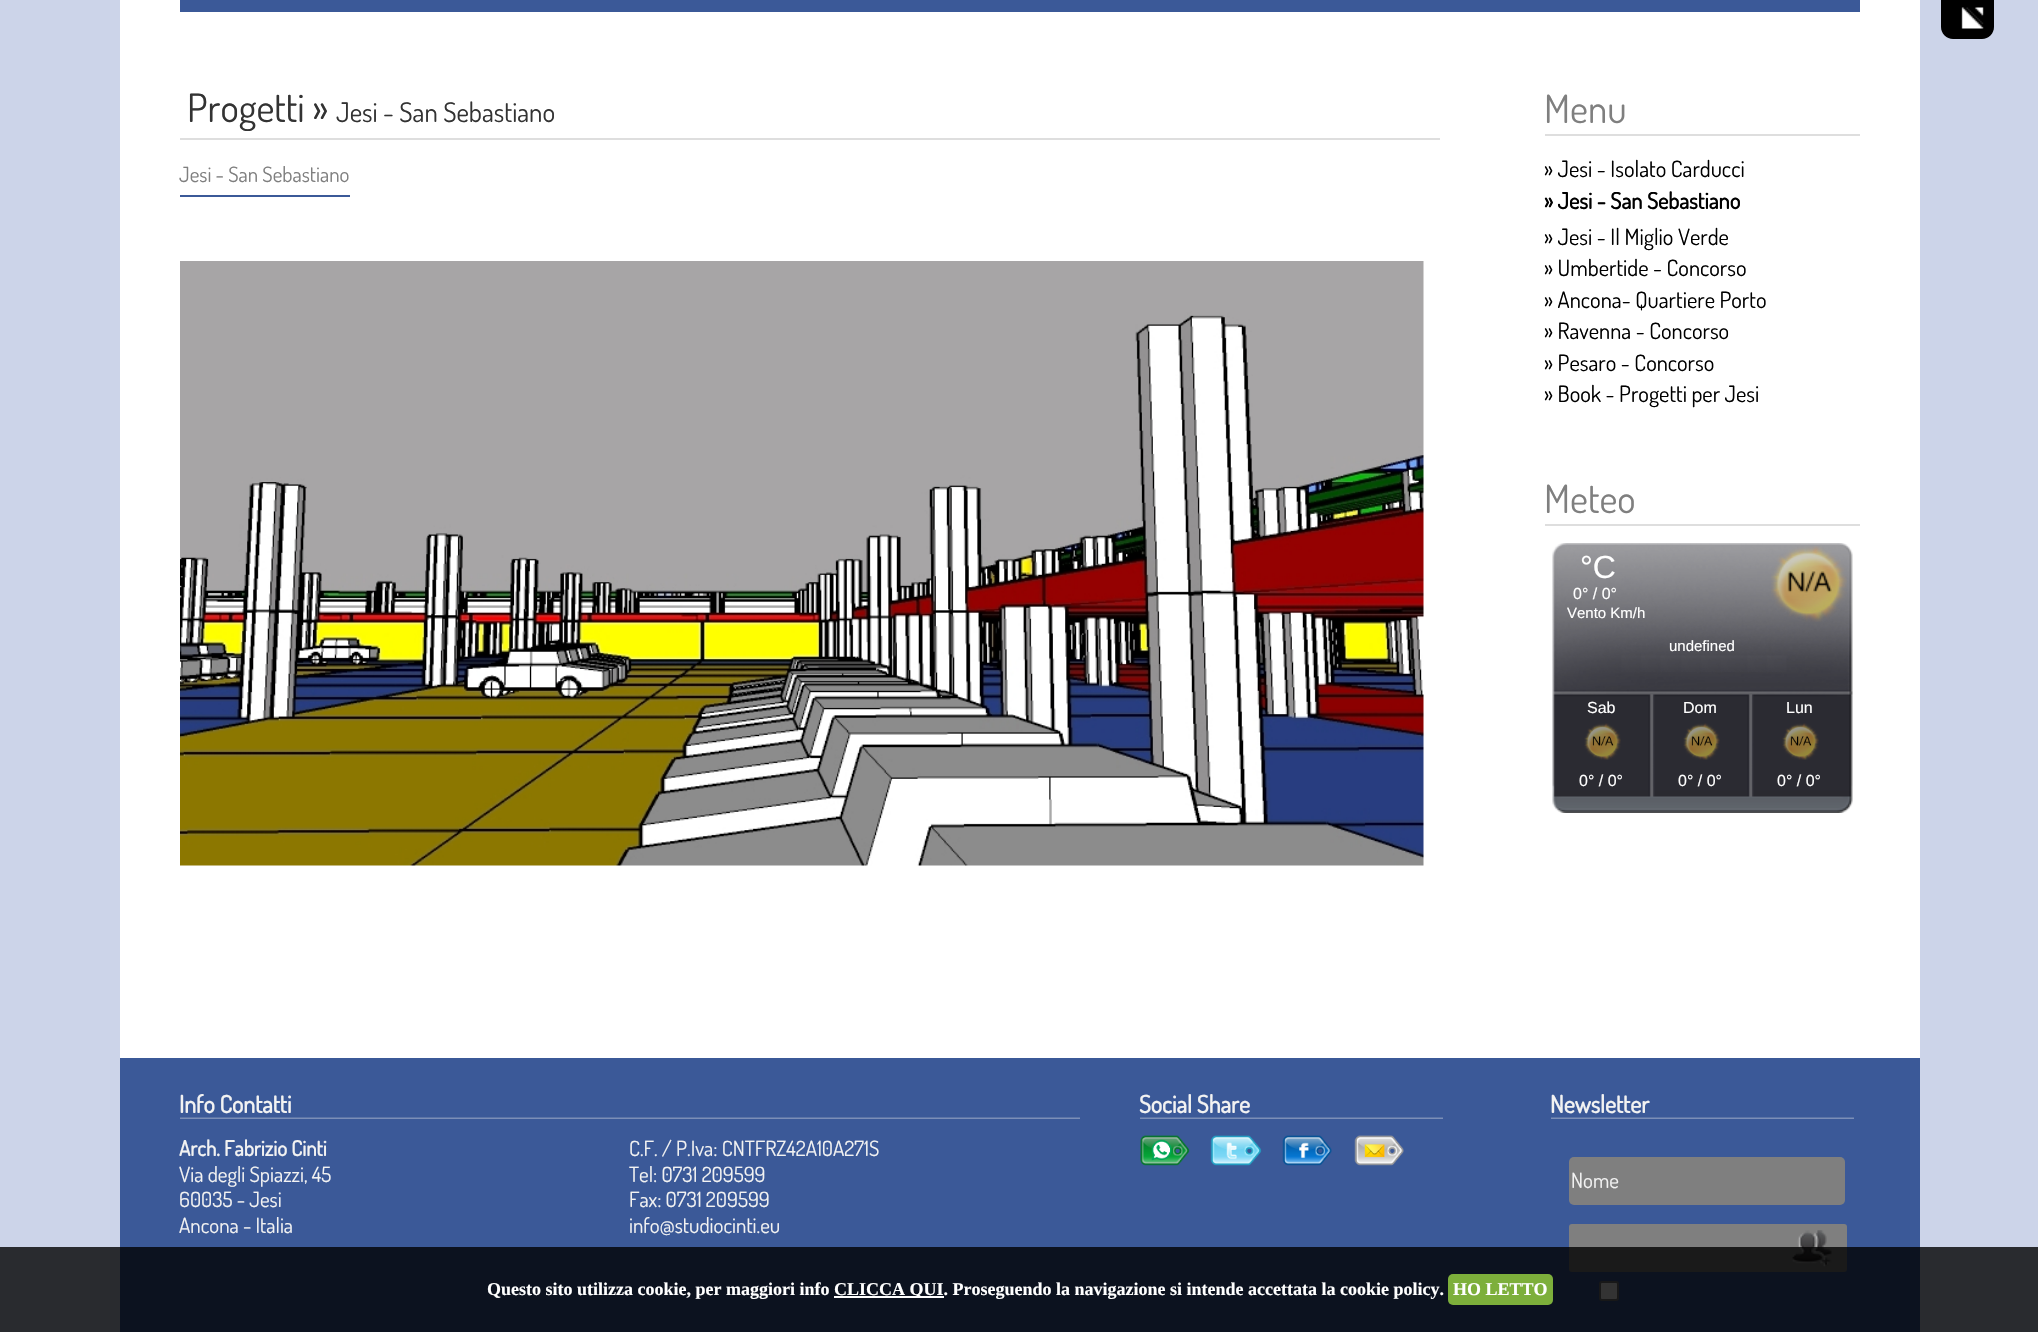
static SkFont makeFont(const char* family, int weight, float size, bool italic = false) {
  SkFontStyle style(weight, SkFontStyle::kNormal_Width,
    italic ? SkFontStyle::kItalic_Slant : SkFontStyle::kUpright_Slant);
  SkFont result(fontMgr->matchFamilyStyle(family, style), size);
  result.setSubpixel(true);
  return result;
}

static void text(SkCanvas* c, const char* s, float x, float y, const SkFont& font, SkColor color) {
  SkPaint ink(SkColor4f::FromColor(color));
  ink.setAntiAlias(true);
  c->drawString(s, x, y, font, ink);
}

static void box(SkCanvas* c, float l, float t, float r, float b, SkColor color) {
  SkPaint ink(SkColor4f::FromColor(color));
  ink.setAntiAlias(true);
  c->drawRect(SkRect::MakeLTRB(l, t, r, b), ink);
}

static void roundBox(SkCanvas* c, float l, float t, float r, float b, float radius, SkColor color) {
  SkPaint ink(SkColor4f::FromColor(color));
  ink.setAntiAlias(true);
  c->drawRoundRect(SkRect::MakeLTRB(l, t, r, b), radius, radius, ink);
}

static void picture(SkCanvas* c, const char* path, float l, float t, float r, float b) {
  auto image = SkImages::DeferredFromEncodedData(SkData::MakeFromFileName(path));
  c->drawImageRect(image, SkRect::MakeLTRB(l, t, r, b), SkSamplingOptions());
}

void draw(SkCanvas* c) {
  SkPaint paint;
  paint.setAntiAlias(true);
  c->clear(0xffccd4e9);
  paint.setColor(0xff000000);
  c->drawPath(SkPathBuilder().moveTo(1941, 0).lineTo(1994, 0).lineTo(1994, 27).cubicTo(1994, 33.5f, 1988.5f, 39, 1982, 39).lineTo(1953, 39).cubicTo(1946.5f, 39, 1941, 33.5f, 1941, 27).close().detach(), paint);
  picture(c, "img_01.png", 1961, 7, 1984, 29);
  box(c, 120, 0, 1920, 1058, 0xffffffff);
  box(c, 180, 0, 1860, 12, 0xff3b5998);
  box(c, 180, 138, 1440, 140, 0xffdedede);
  SkFont face1 = makeFont("Dosis", 400, 39);
  text(c, "Progetti »", 187, 122, face1, 0xff333333);
  SkFont face2 = makeFont("Dosis", 400, 27);
  text(c, "Jesi - San Sebastiano", 336, 122, face2, 0xff333333);
  SkFont face3 = makeFont("Dosis", 400, 21);
  text(c, "Jesi - San Sebastiano", 179, 182, face3, 0xff7f7f7f);
  box(c, 180, 195, 350, 197, 0xff3b5998);
  picture(c, "img_02.png", 180, 261, 1424, 866);
  box(c, 1545, 134, 1860, 136, 0xffdedede);
  text(c, "Menu", 1544, 123, face1, 0xff7f7f7f);
  SkFont face4 = makeFont("Dosis", 400, 22.5f);
  text(c, "» Jesi - Isolato Carducci", 1544, 177, face4, 0xff000000);
  SkFont face5 = makeFont("Dosis", 700, 22.5f);
  text(c, "» Jesi - San Sebastiano", 1544, 209, face5, 0xff000000);
  text(c, "» Jesi - Il Miglio Verde", 1544, 245, face4, 0xff000000);
  text(c, "» Umbertide - Concorso", 1544, 276, face4, 0xff000000);
  text(c, "» Ancona- Quartiere Porto", 1544, 308, face4, 0xff000000);
  text(c, "» Ravenna - Concorso", 1544, 339, face4, 0xff000000);
  text(c, "» Pesaro - Concorso", 1544, 371, face4, 0xff000000);
  text(c, "» Book - Progetti per Jesi", 1544, 402, face4, 0xff000000);
  box(c, 1545, 524, 1860, 526, 0xffdedede);
  text(c, "Meteo", 1544, 513, face1, 0xff7f7f7f);
  picture(c, "img_03.png", 1552, 543, 1853, 813);
  picture(c, "img_04.png", 1771, 546, 1847, 622);
  SkFont face6 = makeFont("Liberation Sans", 400, 32);
  text(c, "°C", 1580, 578, face6, 0xffffffff);
  SkFont face7 = makeFont("Liberation Sans", 400, 16);
  text(c, "0° / 0°", 1573, 599, face7, 0xffffffff);
  SkFont face8 = makeFont("Liberation Sans", 400, 15);
  text(c, "Vento Km/h", 1567, 618, face8, 0xffffffff);
  text(c, "undefined", 1669, 651, face8, 0xffffffff);
  text(c, "Sab", 1587, 713, face7, 0xffffffff);
  picture(c, "img_05.png", 1584, 723, 1621, 760);
  text(c, "0° / 0°", 1579, 786, face7, 0xffffffff);
  text(c, "Dom", 1683, 713, face7, 0xffffffff);
  picture(c, "img_06.png", 1683, 723, 1720, 760);
  text(c, "0° / 0°", 1678, 786, face7, 0xffffffff);
  text(c, "Lun", 1786, 713, face7, 0xffffffff);
  picture(c, "img_05.png", 1782, 723, 1819, 760);
  text(c, "0° / 0°", 1777, 786, face7, 0xffffffff);
  box(c, 120, 1058, 1920, 1332, 0xff3b5998);
  picture(c, "img_07.png", 180, 1117, 1080, 1119);
  SkFont face9 = makeFont("Dosis", 700, 24);
  text(c, "Info Contatti", 179, 1113, face9, 0xfff2f2f2);
  SkFont face10 = makeFont("Dosis", 700, 21);
  text(c, "Arch. Fabrizio Cinti", 179, 1156, face10, 0xfff2f2f2);
  text(c, "Via degli Spiazzi, 45", 179, 1182, face3, 0xfff2f2f2);
  text(c, "60035 - Jesi", 179, 1207, face3, 0xfff2f2f2);
  text(c, "Ancona - Italia", 179, 1233, face3, 0xfff2f2f2);
  text(c, "C.F. / P.Iva: CNTFRZ42A10A271S", 629, 1156, face3, 0xfff2f2f2);
  text(c, "Tel: 0731 209599", 629, 1182, face3, 0xfff2f2f2);
  text(c, "Fax: 0731 209599", 629, 1207, face3, 0xfff2f2f2);
  text(c, "info@studiocinti.eu", 629, 1233, face3, 0xfff2f2f2);
  picture(c, "img_08.png", 1140, 1117, 1443, 1119);
  text(c, "Social Share", 1139, 1113, face9, 0xfff2f2f2);
  picture(c, "img_09.png", 1140, 1135, 1190, 1166);
  picture(c, "img_10.png", 1210, 1135, 1262, 1166);
  picture(c, "img_11.png", 1282, 1135, 1332, 1166);
  picture(c, "img_12.png", 1354, 1135, 1404, 1166);
  picture(c, "img_08.png", 1551, 1117, 1854, 1119);
  text(c, "Newsletter", 1550, 1113, face9, 0xfff2f2f2);
  roundBox(c, 1569, 1157, 1845, 1205, 5, 0xff7f7f7f);
  text(c, "Nome", 1571, 1188, face3, 0xfff2f2f2);
  roundBox(c, 1569, 1224, 1847, 1272, 3, 0xff7f7f7f);
  picture(c, "img_13.png", 1792, 1230, 1832, 1267);
  paint.setColor(0xffffffff);
  c->drawRoundRect(SkRect::MakeLTRB(1600, 1282, 1618, 1300), 2, 2, paint);
  paint.setStyle(SkPaint::kStroke_Style);
  paint.setStrokeWidth(2);
  paint.setColor(0xff767676);
  c->drawRoundRect(SkRect::MakeLTRB(1600, 1282, 1618, 1300), 2, 2, paint);
  box(c, 0, 1247, 2038, 1332, 0xcc000000);
  SkFont face11 = makeFont("Liberation Serif", 700, 18);
  text(c, "Questo sito utilizza cookie, per maggiori info", 487, 1295, face11, 0xffffffff);
  box(c, 834, 1296, 944, 1298, 0xffffffff);
  text(c, "CLICCA QUI. Proseguendo la navigazione si intende accettata la cookie policy.", 834, 1295, face11, 0xffffffff);
  roundBox(c, 1448, 1274, 1553, 1305, 5, 0xff7daf3b);
  text(c, "HO LETTO", 1453, 1295, face11, 0xffffffff);
}
